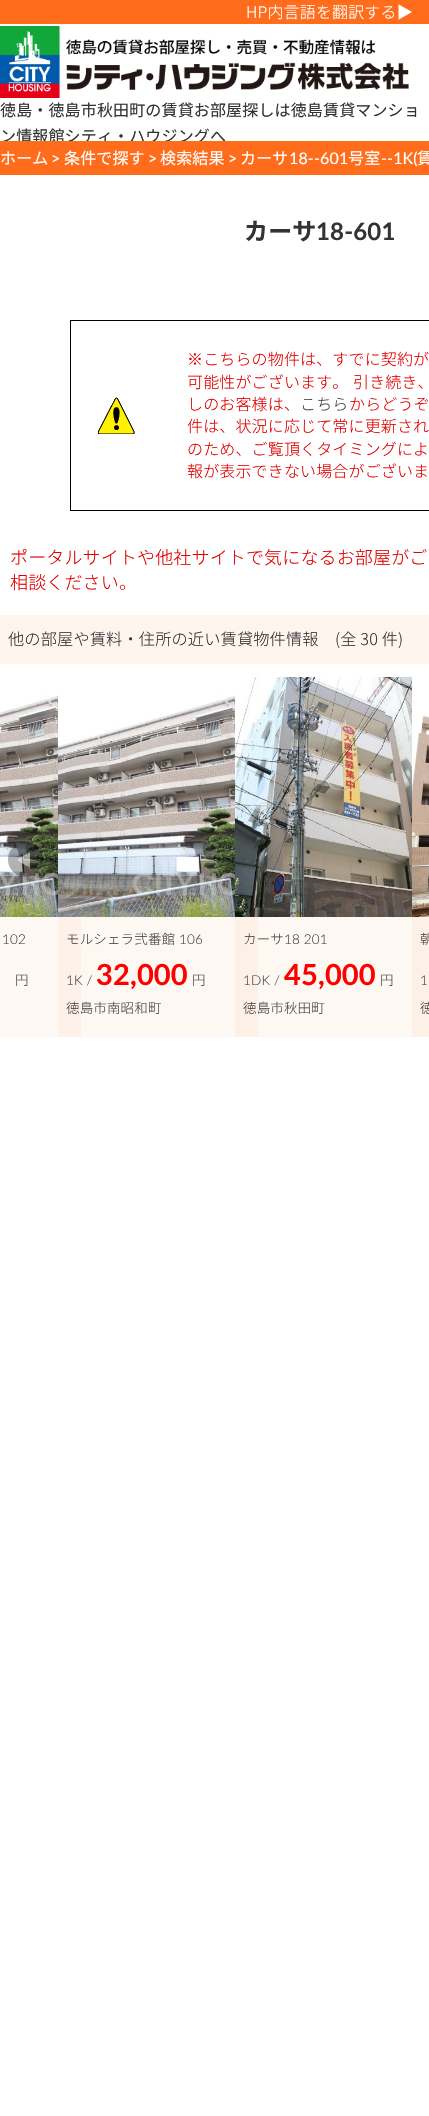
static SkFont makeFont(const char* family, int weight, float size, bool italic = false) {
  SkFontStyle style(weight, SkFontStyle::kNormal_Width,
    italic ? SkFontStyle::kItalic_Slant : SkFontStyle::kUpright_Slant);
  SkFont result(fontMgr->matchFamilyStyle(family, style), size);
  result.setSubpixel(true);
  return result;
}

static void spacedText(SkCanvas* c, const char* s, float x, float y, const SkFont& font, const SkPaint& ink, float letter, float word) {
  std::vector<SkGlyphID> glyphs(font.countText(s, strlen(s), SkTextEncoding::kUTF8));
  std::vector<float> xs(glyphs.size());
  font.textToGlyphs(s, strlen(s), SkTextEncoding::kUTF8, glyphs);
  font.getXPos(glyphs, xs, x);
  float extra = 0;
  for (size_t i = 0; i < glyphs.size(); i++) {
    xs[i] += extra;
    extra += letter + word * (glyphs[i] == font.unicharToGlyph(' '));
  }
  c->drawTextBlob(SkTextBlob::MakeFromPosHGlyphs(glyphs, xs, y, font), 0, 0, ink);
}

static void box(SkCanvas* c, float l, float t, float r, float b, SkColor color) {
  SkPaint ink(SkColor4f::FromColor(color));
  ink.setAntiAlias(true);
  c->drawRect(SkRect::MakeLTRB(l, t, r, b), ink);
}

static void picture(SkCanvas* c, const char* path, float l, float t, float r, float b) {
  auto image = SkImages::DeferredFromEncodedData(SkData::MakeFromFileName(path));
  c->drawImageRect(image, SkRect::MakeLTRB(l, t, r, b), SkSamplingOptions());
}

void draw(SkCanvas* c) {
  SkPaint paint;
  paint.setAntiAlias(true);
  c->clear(0xffffffff);
  box(c, 0, 0, 429, 24, 0xffff6c1b);
  SkFont face1 = makeFont("Noto Sans JP", 300, 16);
  paint.setColor(0xffffffff);
  spacedText(c, "HP内言語を翻訳する▶", 246, 18, face1, paint, 0.15f, 0);
  picture(c, "img_01.png", 0, 26, 409, 98);
  SkFont face2 = makeFont("Noto Sans JP", 400, 16);
  paint.setColor(0xff333333);
  spacedText(c, "徳島・徳島市秋田町の賃貸お部屋探しは徳島賃貸マンショ", 0, 116, face2, paint, 0.15f, 0);
  c->save();
  c->clipRect(SkRect::MakeLTRB(0, 24, 429, 141));
  spacedText(c, "ン情報館シティ・ハウジングへ", 0, 142, face2, paint, 0.15f, 0);
  c->restore();
  box(c, 0, 141, 429, 175, 0xffff6c1b);
  paint.setColor(0xffffffff);
  spacedText(c, "ホーム", 0, 164, face2, paint, 0.15f, 0);
  SkFont face3 = makeFont("Lato", 400, 16);
  spacedText(c, ">", 51, 164, face3, paint, 0.15f, 0);
  spacedText(c, "条件で探す", 64, 164, face2, paint, 0.15f, 0);
  spacedText(c, ">", 148, 164, face3, paint, 0.15f, 0);
  spacedText(c, "検索結果", 160, 164, face2, paint, 0.15f, 0);
  spacedText(c, ">", 228, 164, face3, paint, 0.15f, 0);
  spacedText(c, "カーサ", 240, 164, face2, paint, 0.15f, 0);
  spacedText(c, "18--601", 289, 164, face3, paint, 0.15f, 0);
  spacedText(c, "号室", 348, 164, face2, paint, 0.15f, 0);
  spacedText(c, "--1K(", 381, 164, face3, paint, 0.15f, 0);
  spacedText(c, "賃", 417, 164, face2, paint, 0.15f, 0);
  SkFont face4 = makeFont("Noto Sans JP", 700, 24);
  paint.setColor(0xff333333);
  spacedText(c, "カーサ", 244, 240, face4, paint, 0.15f, 0);
  SkFont face5 = makeFont("Lato", 700, 24);
  spacedText(c, "18-601", 316, 240, face5, paint, 0.15f, 0);
  paint.setStyle(SkPaint::kStroke_Style);
  paint.setStrokeWidth(1);
  paint.setColor(0xff000000);
  c->drawRect(SkRect::MakeLTRB(70.5f, 320.5f, 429.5f, 510.5f), paint);
  picture(c, "img_02.png", 98, 397, 135, 434);
  paint.setStyle(SkPaint::kFill_Style);
  paint.setColor(0xffe20000);
  spacedText(c, "※こちらの物件は、すでに契約が", 187, 365, face1, paint, 0.15f, 0);
  spacedText(c, "可能性がございます。", 187, 388, face1, paint, 0.15f, 0);
  spacedText(c, "引き続き、", 353, 388, face1, paint, 0.15f, 0);
  spacedText(c, "しのお客様は、", 187, 410, face1, paint, 0.15f, 0);
  paint.setColor(0xff444444);
  spacedText(c, "こちら", 300, 410, face1, paint, 0.15f, 0);
  paint.setColor(0xffe20000);
  spacedText(c, "からどうぞ", 349, 410, face1, paint, 0.15f, 0);
  spacedText(c, "件は、状況に応じて常に更新され", 187, 432, face1, paint, 0.15f, 0);
  spacedText(c, "のため、ご覧頂くタイミングによ", 187, 455, face1, paint, 0.15f, 0);
  spacedText(c, "報が表示できない場合がございま", 187, 477, face1, paint, 0.15f, 0);
  SkFont face6 = makeFont("Noto Sans JP", 300, 18);
  spacedText(c, "ポータルサイトや他社サイトで気になるお部屋がご", 10, 564, face6, paint, 0.15f, 0);
  spacedText(c, "相談ください。", 10, 589, face6, paint, 0.15f, 0);
  box(c, 0, 615, 429, 664, 0xfffff5ef);
  SkFont face7 = makeFont("Noto Sans JP", 300, 16.2f);
  paint.setColor(0xff333333);
  spacedText(c, "他の部屋や賃料・住所の近い賃貸物件情報　(全 30 件)", 8, 645, face7, paint, 0.15f, 0);
  picture(c, "img_03.png", 0, 677, 58, 917);
  paint.setColor(0x4d000000);
  c->drawCircle(25.5f, 859.5f, 17.5f, paint);
  paint.setColor(0x80ffffff);
  c->drawPath(SkPathBuilder().moveTo(30, 852).lineTo(30, 868).lineTo(17, 860).close().detach(), paint);
  box(c, 0, 917, 81, 1037, 0xfffef8f5);
  SkFont face8 = makeFont("Lato", 300, 13.5f);
  paint.setColor(0xff444444);
  spacedText(c, "102", 2, 944, face8, paint, 0.15f, 0);
  SkFont face9 = makeFont("Noto Sans JP", 300, 13.5f);
  spacedText(c, "円", 15, 985, face9, paint, 0.15f, 0);
  box(c, 58, 917, 258, 1037, 0x0de66c1c);
  picture(c, "img_04.png", 58, 677, 235, 917);
  spacedText(c, "モルシェラ弐番館", 66, 944, face9, paint, 0.15f, 0);
  spacedText(c, "106", 179, 944, face8, paint, 0.15f, 0);
  spacedText(c, "1K /", 66, 985, face8, paint, 0.15f, 0);
  SkFont face10 = makeFont("Lato", 700, 29);
  paint.setColor(0xffff0000);
  spacedText(c, "32,000", 96, 985, face10, paint, 0.15f, 0);
  paint.setColor(0xff444444);
  spacedText(c, "円", 192, 985, face9, paint, 0.15f, 0);
  spacedText(c, "徳島市南昭和町", 66, 1013, face9, paint, 0.15f, 0);
  box(c, 235, 917, 429, 1037, 0x0de66c1c);
  picture(c, "img_05.png", 235, 677, 412, 917);
  spacedText(c, "カーサ", 243, 944, face9, paint, 0.15f, 0);
  spacedText(c, "18 201", 284, 944, face8, paint, 0.15f, 0);
  spacedText(c, "1DK /", 243, 985, face8, paint, 0.15f, 0);
  paint.setColor(0xffff0000);
  spacedText(c, "45,000", 284, 985, face10, paint, 0.15f, 0);
  paint.setColor(0xff444444);
  spacedText(c, "円", 380, 985, face9, paint, 0.15f, 0);
  spacedText(c, "徳島市秋田町", 243, 1013, face9, paint, 0.15f, 0);
  box(c, 412, 917, 429, 1037, 0x0de66c1c);
  picture(c, "img_06.png", 412, 677, 429, 917);
  spacedText(c, "朝", 420, 944, face9, paint, 0.15f, 0);
  spacedText(c, "1", 420, 985, face8, paint, 0.15f, 0);
  spacedText(c, "徳", 420, 1013, face9, paint, 0.15f, 0);
}
